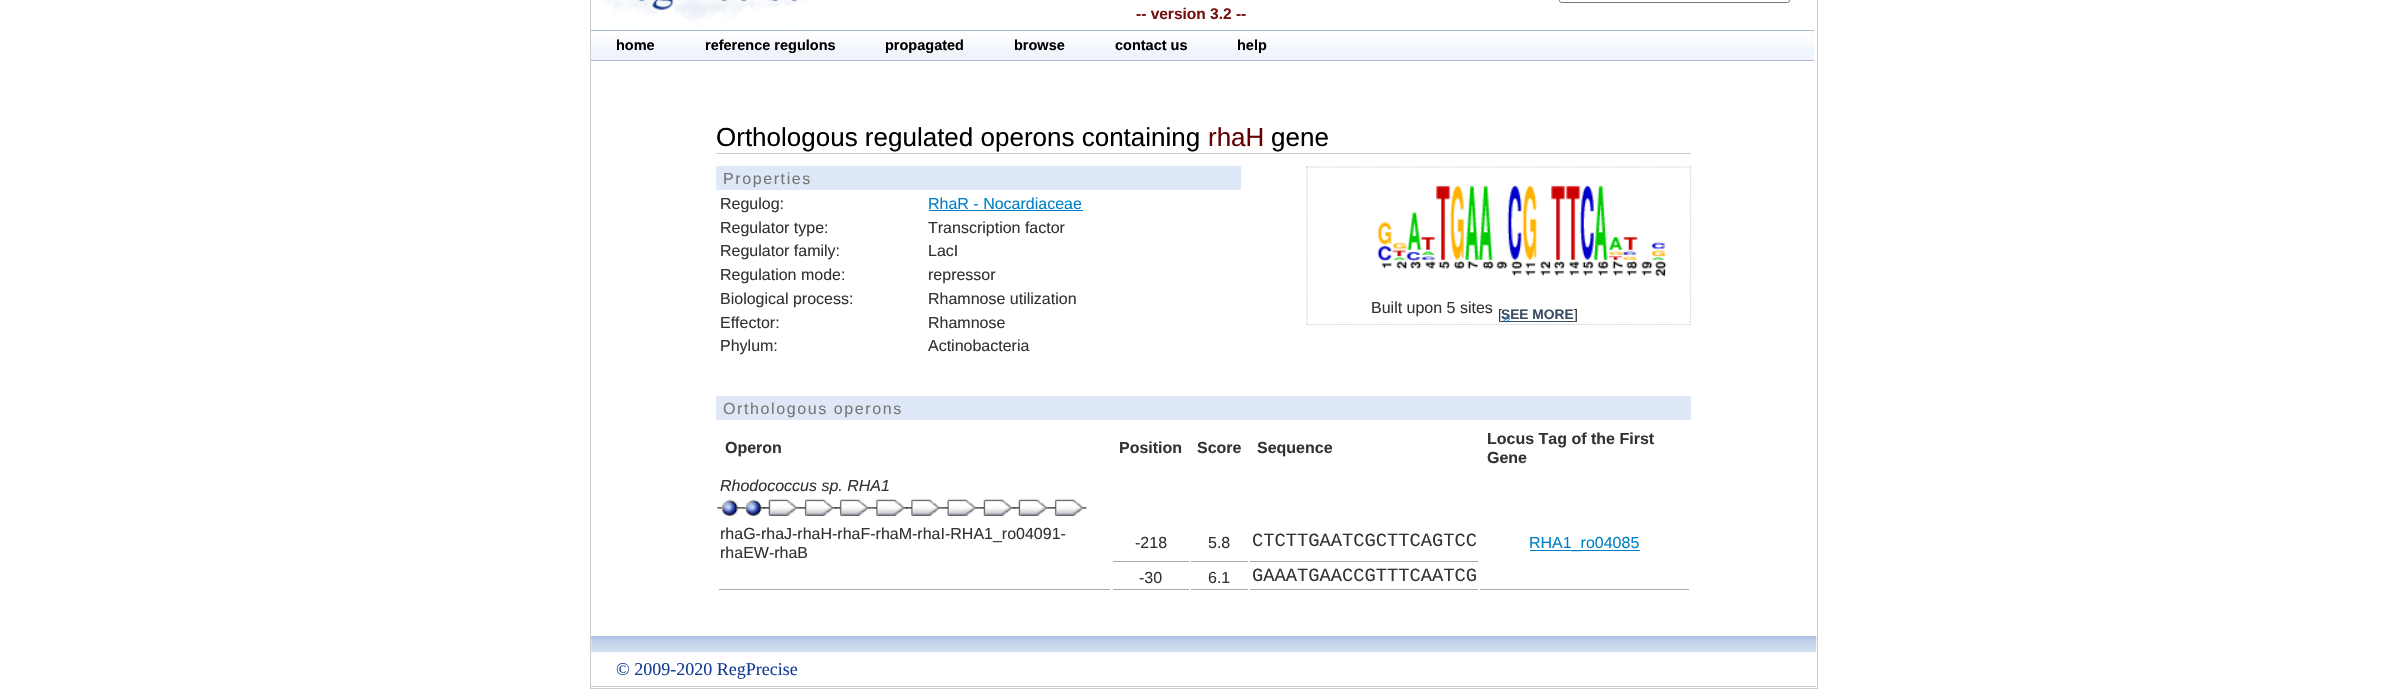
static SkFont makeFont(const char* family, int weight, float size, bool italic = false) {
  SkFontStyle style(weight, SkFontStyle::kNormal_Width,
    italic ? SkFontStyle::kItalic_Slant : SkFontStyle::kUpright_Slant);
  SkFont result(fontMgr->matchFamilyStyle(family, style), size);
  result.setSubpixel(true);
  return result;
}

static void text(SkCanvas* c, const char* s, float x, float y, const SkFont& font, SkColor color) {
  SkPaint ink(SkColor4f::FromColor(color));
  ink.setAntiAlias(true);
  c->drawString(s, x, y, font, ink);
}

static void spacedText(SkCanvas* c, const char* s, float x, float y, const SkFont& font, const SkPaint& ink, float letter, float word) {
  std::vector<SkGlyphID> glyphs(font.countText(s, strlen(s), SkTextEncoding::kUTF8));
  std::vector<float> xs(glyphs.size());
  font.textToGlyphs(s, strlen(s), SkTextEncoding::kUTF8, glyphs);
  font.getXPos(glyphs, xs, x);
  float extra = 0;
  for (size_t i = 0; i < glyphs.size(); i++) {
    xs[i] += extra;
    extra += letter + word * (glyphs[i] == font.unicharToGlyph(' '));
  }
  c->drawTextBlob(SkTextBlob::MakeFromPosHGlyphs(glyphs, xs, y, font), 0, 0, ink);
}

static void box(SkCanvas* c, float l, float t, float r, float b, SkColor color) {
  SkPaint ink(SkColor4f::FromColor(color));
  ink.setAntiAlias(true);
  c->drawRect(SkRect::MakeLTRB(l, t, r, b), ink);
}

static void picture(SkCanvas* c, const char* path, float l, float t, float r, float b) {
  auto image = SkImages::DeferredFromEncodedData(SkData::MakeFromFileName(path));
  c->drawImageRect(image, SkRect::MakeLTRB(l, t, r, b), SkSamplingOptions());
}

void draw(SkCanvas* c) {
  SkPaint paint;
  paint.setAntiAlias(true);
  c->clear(0xffffffff);
  paint.setStyle(SkPaint::kStroke_Style);
  paint.setStrokeWidth(1);
  paint.setColor(0xffcccccc);
  c->drawRect(SkRect::MakeLTRB(590.5f, -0.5f, 1817.5f, 688.5f), paint);
  picture(c, "img_01.png", 603, 0, 806, 26);
  SkFont face1 = makeFont("Liberation Sans", 700, 15.5f);
  text(c, "-- version 3.2 --", 1136, 19, face1, 0xff771111);
  paint.setColor(0xff767676);
  c->drawRoundRect(SkRect::MakeLTRB(1559.5f, -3.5f, 1789.5f, 2.5f), 2, 2, paint);
  box(c, 591, 31, 1814, 60, 0xfff0f5fb);
  picture(c, "img_02.png", 591, 31, 1814, 48);
  box(c, 591, 30, 1814, 31, 0xffabb9d7);
  box(c, 591, 60, 1814, 61, 0xffabb9d7);
  SkFont face2 = makeFont("Liberation Sans", 700, 14.5f);
  text(c, "home", 616, 50, face2, 0xff000000);
  text(c, "reference regulons", 705, 50, face2, 0xff000000);
  text(c, "propagated", 885, 50, face2, 0xff000000);
  text(c, "browse", 1014, 50, face2, 0xff000000);
  text(c, "contact us", 1115, 50, face2, 0xff000000);
  text(c, "help", 1237, 50, face2, 0xff000000);
  box(c, 716, 153, 1691, 154, 0xffcccccc);
  SkFont face3 = makeFont("Liberation Sans", 400, 26);
  text(c, "Orthologous regulated operons containing", 716, 146, face3, 0xff000000);
  text(c, "rhaH", 1208, 146, face3, 0xff660000);
  text(c, "gene", 1271, 146, face3, 0xff000000);
  box(c, 716, 166, 1241, 190, 0xffdfe8f6);
  SkFont face4 = makeFont("Liberation Sans", 400, 16);
  paint.setStyle(SkPaint::kFill_Style);
  paint.setColor(0xff777777);
  spacedText(c, "Properties", 723, 184, face4, paint, 1.6f, 0);
  text(c, "Regulog:", 720, 209, face4, 0xff333333);
  text(c, "RhaR - Nocardiaceae", 928, 209, face4, 0xff0081c6);
  box(c, 929, 210, 1083, 211, 0xff0081c6);
  text(c, "Regulator type:", 720, 233, face4, 0xff333333);
  text(c, "Transcription factor", 928, 233, face4, 0xff333333);
  text(c, "Regulator family:", 720, 256, face4, 0xff333333);
  text(c, "LacI", 928, 256, face4, 0xff333333);
  text(c, "Regulation mode:", 720, 280, face4, 0xff333333);
  text(c, "repressor", 928, 280, face4, 0xff333333);
  text(c, "Biological process:", 720, 304, face4, 0xff333333);
  text(c, "Rhamnose utilization", 928, 304, face4, 0xff333333);
  text(c, "Effector:", 720, 328, face4, 0xff333333);
  text(c, "Rhamnose", 928, 328, face4, 0xff333333);
  text(c, "Phylum:", 720, 351, face4, 0xff333333);
  text(c, "Actinobacteria", 928, 351, face4, 0xff333333);
  paint.setStyle(SkPaint::kStroke_Style);
  paint.setStrokeWidth(1.2f);
  paint.setColor(0xffcccccc);
  paint.setPathEffect(SkDashPathEffect::Make({{1.25f, 1.25f}}, 0));
  c->drawPath(SkPathBuilder().moveTo(1306, 167).lineTo(1691, 167).detach(), paint);
  paint.setPathEffect(nullptr);
  paint.setPathEffect(SkDashPathEffect::Make({{1.25f, 1.25f}}, 0));
  c->drawPath(SkPathBuilder().moveTo(1690.5f, 166).lineTo(1690.5f, 325).detach(), paint);
  paint.setPathEffect(nullptr);
  paint.setPathEffect(SkDashPathEffect::Make({{1.25f, 1.25f}}, 0));
  c->drawPath(SkPathBuilder().moveTo(1306, 324.5f).lineTo(1691, 324.5f).detach(), paint);
  paint.setPathEffect(nullptr);
  paint.setPathEffect(SkDashPathEffect::Make({{1.25f, 1.25f}}, 0));
  c->drawPath(SkPathBuilder().moveTo(1307, 166).lineTo(1307, 325).detach(), paint);
  paint.setPathEffect(nullptr);
  picture(c, "img_03.png", 1377, 185, 1667, 277);
  text(c, "Built upon 5 sites", 1371, 313, face4, 0xff333333);
  SkFont face5 = makeFont("Liberation Sans", 400, 13.75f);
  text(c, "[", 1498, 319, face5, 0xff333333);
  picture(c, "img_04.png", 1501, 316, 1510, 323);
  box(c, 1501, 321, 1574, 322, 0xff3c4b64);
  SkFont face6 = makeFont("Liberation Sans", 700, 13.75f);
  text(c, "SEE MORE", 1501, 319, face6, 0xff3c4b64);
  text(c, "]", 1574, 319, face5, 0xff333333);
  box(c, 716, 396, 1691, 420, 0xffdfe8f6);
  paint.setStyle(SkPaint::kFill_Style);
  paint.setColor(0xff777777);
  spacedText(c, "Orthologous operons", 723, 414, face4, paint, 1.6f, 0);
  SkFont face7 = makeFont("Liberation Sans", 700, 16);
  text(c, "Operon", 725, 453, face7, 0xff333333);
  text(c, "Position", 1119, 453, face7, 0xff333333);
  text(c, "Score", 1197, 453, face7, 0xff333333);
  text(c, "Sequence", 1257, 453, face7, 0xff333333);
  text(c, "Locus Tag of the First", 1487, 444, face7, 0xff333333);
  text(c, "Gene", 1487, 463, face7, 0xff333333);
  SkFont face8 = makeFont("Liberation Sans", 400, 16, true);
  text(c, "Rhodococcus sp. RHA1", 720, 491, face8, 0xff333333);
  picture(c, "img_05.png", 717, 499, 742, 516);
  picture(c, "img_06.png", 741, 499, 765, 516);
  picture(c, "img_07.png", 763, 499, 800, 516);
  picture(c, "img_08.png", 800, 499, 837, 516);
  picture(c, "img_09.png", 835, 499, 872, 516);
  picture(c, "img_10.png", 871, 499, 908, 516);
  picture(c, "img_11.png", 906, 499, 943, 516);
  picture(c, "img_12.png", 942, 499, 979, 516);
  picture(c, "img_13.png", 978, 499, 1015, 516);
  picture(c, "img_07.png", 1013, 499, 1050, 516);
  picture(c, "img_14.png", 1050, 499, 1087, 516);
  text(c, "rhaG-rhaJ-rhaH-rhaF-rhaM-rhaI-RHA1_ro04091-", 720, 539, face4, 0xff333333);
  text(c, "rhaEW-rhaB", 720, 558, face4, 0xff333333);
  box(c, 1113, 561, 1189, 562, 0xffaaaaaa);
  text(c, "-218", 1135, 548, face4, 0xff333333);
  box(c, 1191, 561, 1248, 562, 0xffaaaaaa);
  text(c, "5.8", 1208, 548, face4, 0xff333333);
  box(c, 1250, 561, 1478, 562, 0xffaaaaaa);
  SkFont face9 = makeFont("Liberation Mono", 400, 18.75f);
  text(c, "CTCTTGAATCGCTTCAGTCC", 1252, 546, face9, 0xff333333);
  box(c, 1530, 550, 1640, 551, 0xff0081c6);
  text(c, "RHA1_ro04085", 1529, 548, face4, 0xff0081c6);
  box(c, 1113, 589, 1189, 590, 0xffaaaaaa);
  text(c, "-30", 1139, 583, face4, 0xff333333);
  box(c, 1191, 589, 1248, 590, 0xffaaaaaa);
  text(c, "6.1", 1208, 583, face4, 0xff333333);
  box(c, 1250, 589, 1478, 590, 0xffaaaaaa);
  text(c, "GAAATGAACCGTTTCAATCG", 1252, 581, face9, 0xff333333);
  box(c, 719, 589, 1110, 590, 0xffaaaaaa);
  box(c, 1480, 589, 1689, 590, 0xffaaaaaa);
  picture(c, "img_15.png", 591, 636, 1817, 653);
  SkFont face10 = makeFont("Liberation Serif", 400, 18);
  text(c, "© 2009-2020 RegPrecise", 616, 675, face10, 0xff133d91);
  box(c, 591, 686, 1816, 687, 0xffcccccc);
}
